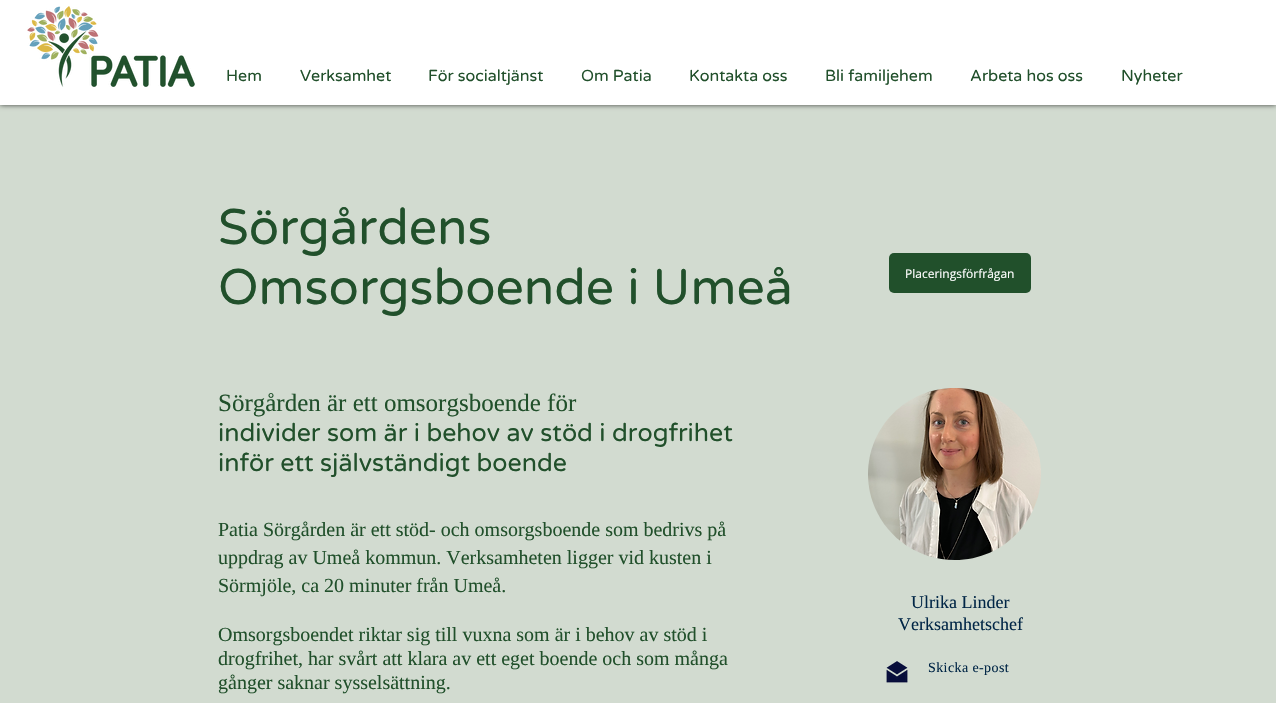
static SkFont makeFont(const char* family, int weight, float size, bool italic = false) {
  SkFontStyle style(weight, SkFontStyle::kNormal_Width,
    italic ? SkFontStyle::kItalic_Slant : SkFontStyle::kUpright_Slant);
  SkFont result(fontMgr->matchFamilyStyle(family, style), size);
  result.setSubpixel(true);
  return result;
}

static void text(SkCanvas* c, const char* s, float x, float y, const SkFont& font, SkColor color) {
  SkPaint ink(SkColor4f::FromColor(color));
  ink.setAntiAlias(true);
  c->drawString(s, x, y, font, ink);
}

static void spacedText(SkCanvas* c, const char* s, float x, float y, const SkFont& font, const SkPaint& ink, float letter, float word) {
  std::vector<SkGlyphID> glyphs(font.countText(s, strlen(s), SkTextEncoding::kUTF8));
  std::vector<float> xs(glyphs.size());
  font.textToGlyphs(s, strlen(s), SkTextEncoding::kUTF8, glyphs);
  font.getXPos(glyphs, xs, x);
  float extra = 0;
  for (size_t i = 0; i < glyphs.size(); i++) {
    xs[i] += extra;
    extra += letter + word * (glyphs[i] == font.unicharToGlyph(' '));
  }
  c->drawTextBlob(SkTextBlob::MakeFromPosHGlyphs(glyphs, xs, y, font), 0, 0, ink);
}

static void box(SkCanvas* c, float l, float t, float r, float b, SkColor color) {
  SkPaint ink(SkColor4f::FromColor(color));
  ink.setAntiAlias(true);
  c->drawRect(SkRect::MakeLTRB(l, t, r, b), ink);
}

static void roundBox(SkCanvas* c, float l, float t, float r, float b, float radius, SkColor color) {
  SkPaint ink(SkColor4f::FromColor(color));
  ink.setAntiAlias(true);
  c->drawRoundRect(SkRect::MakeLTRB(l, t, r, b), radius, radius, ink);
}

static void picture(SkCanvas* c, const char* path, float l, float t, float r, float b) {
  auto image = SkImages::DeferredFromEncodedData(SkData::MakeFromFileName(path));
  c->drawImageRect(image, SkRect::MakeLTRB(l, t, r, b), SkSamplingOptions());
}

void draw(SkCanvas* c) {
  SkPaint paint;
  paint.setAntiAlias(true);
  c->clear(0xffd2dbd0);
  paint.setColor(0xb3000000);
  paint.setMaskFilter(SkMaskFilter::MakeBlur(kNormal_SkBlurStyle, 2.5f));
  c->drawRect(SkRect::MakeLTRB(0, 0, 1276, 105), paint);
  paint.setMaskFilter(nullptr);
  box(c, 0, 0, 1276, 105, 0xffffffff);
  picture(c, "img_01.png", 27, 6, 195, 87);
  SkFont face1 = makeFont("Varela Round", 400, 16);
  text(c, "Hem", 226, 81, face1, 0xff21502b);
  text(c, "Verksamhet", 300, 81, face1, 0xff21502b);
  text(c, "För socialtjänst", 428, 81, face1, 0xff21502b);
  text(c, "Om Patia", 581, 81, face1, 0xff21502b);
  text(c, "Kontakta oss", 689, 81, face1, 0xff21502b);
  text(c, "Bli familjehem", 825, 81, face1, 0xff21502b);
  text(c, "Arbeta hos oss", 970, 81, face1, 0xff21502b);
  text(c, "Nyheter", 1121, 81, face1, 0xff21502b);
  SkFont face2 = makeFont("Varela Round", 400, 50);
  text(c, "Sörgårdens", 218, 244, face2, 0xff21502b);
  text(c, "Omsorgsboende i Umeå", 218, 304, face2, 0xff21502b);
  roundBox(c, 889, 253, 1031, 293, 5, 0xff21502b);
  SkFont face3 = makeFont("Open Sans", 400, 12);
  text(c, "Placeringsförfrågan", 905, 278, face3, 0xffffffff);
  SkFont face4 = makeFont("Liberation Serif", 400, 25);
  text(c, "Sörgården är ett omsorgsboende för", 218, 411, face4, 0xff21502b);
  SkFont face5 = makeFont("Varela Round", 400, 25);
  text(c, "individer som är i behov av stöd i drogfrihet", 218, 441, face5, 0xff21502b);
  text(c, "inför ett självständigt boende", 218, 471, face5, 0xff21502b);
  SkFont face6 = makeFont("Liberation Serif", 400, 20);
  text(c, "Patia Sörgården är ett stöd- och omsorgsboende som bedrivs på", 218, 536, face6, 0xff21502b);
  text(c, "uppdrag av Umeå kommun. Verksamheten ligger vid kusten i", 218, 564, face6, 0xff21502b);
  text(c, "Sörmjöle, ca 20 minuter från Umeå.", 218, 592, face6, 0xff21502b);
  text(c, "Omsorgsboendet riktar sig till vuxna som är i behov av stöd i", 218, 641, face6, 0xff21502b);
  text(c, "drogfrihet, har svårt att klara av ett eget boende och som många", 218, 665, face6, 0xff21502b);
  text(c, "gånger saknar sysselsättning.", 218, 689, face6, 0xff21502b);
  picture(c, "img_02.png", 868, 388, 1041, 560);
  SkFont face7 = makeFont("Liberation Serif", 400, 18);
  text(c, "Ulrika Linder", 911, 608, face7, 0xff012646);
  text(c, "Verksamhetschef", 898, 630, face7, 0xff012646);
  picture(c, "img_03.png", 886, 661, 908, 683);
  SkFont face8 = makeFont("Liberation Serif", 400, 14);
  paint.setColor(0xff012646);
  spacedText(c, "Skicka e-post", 928, 672, face8, paint, 0.4f, 0);
}
